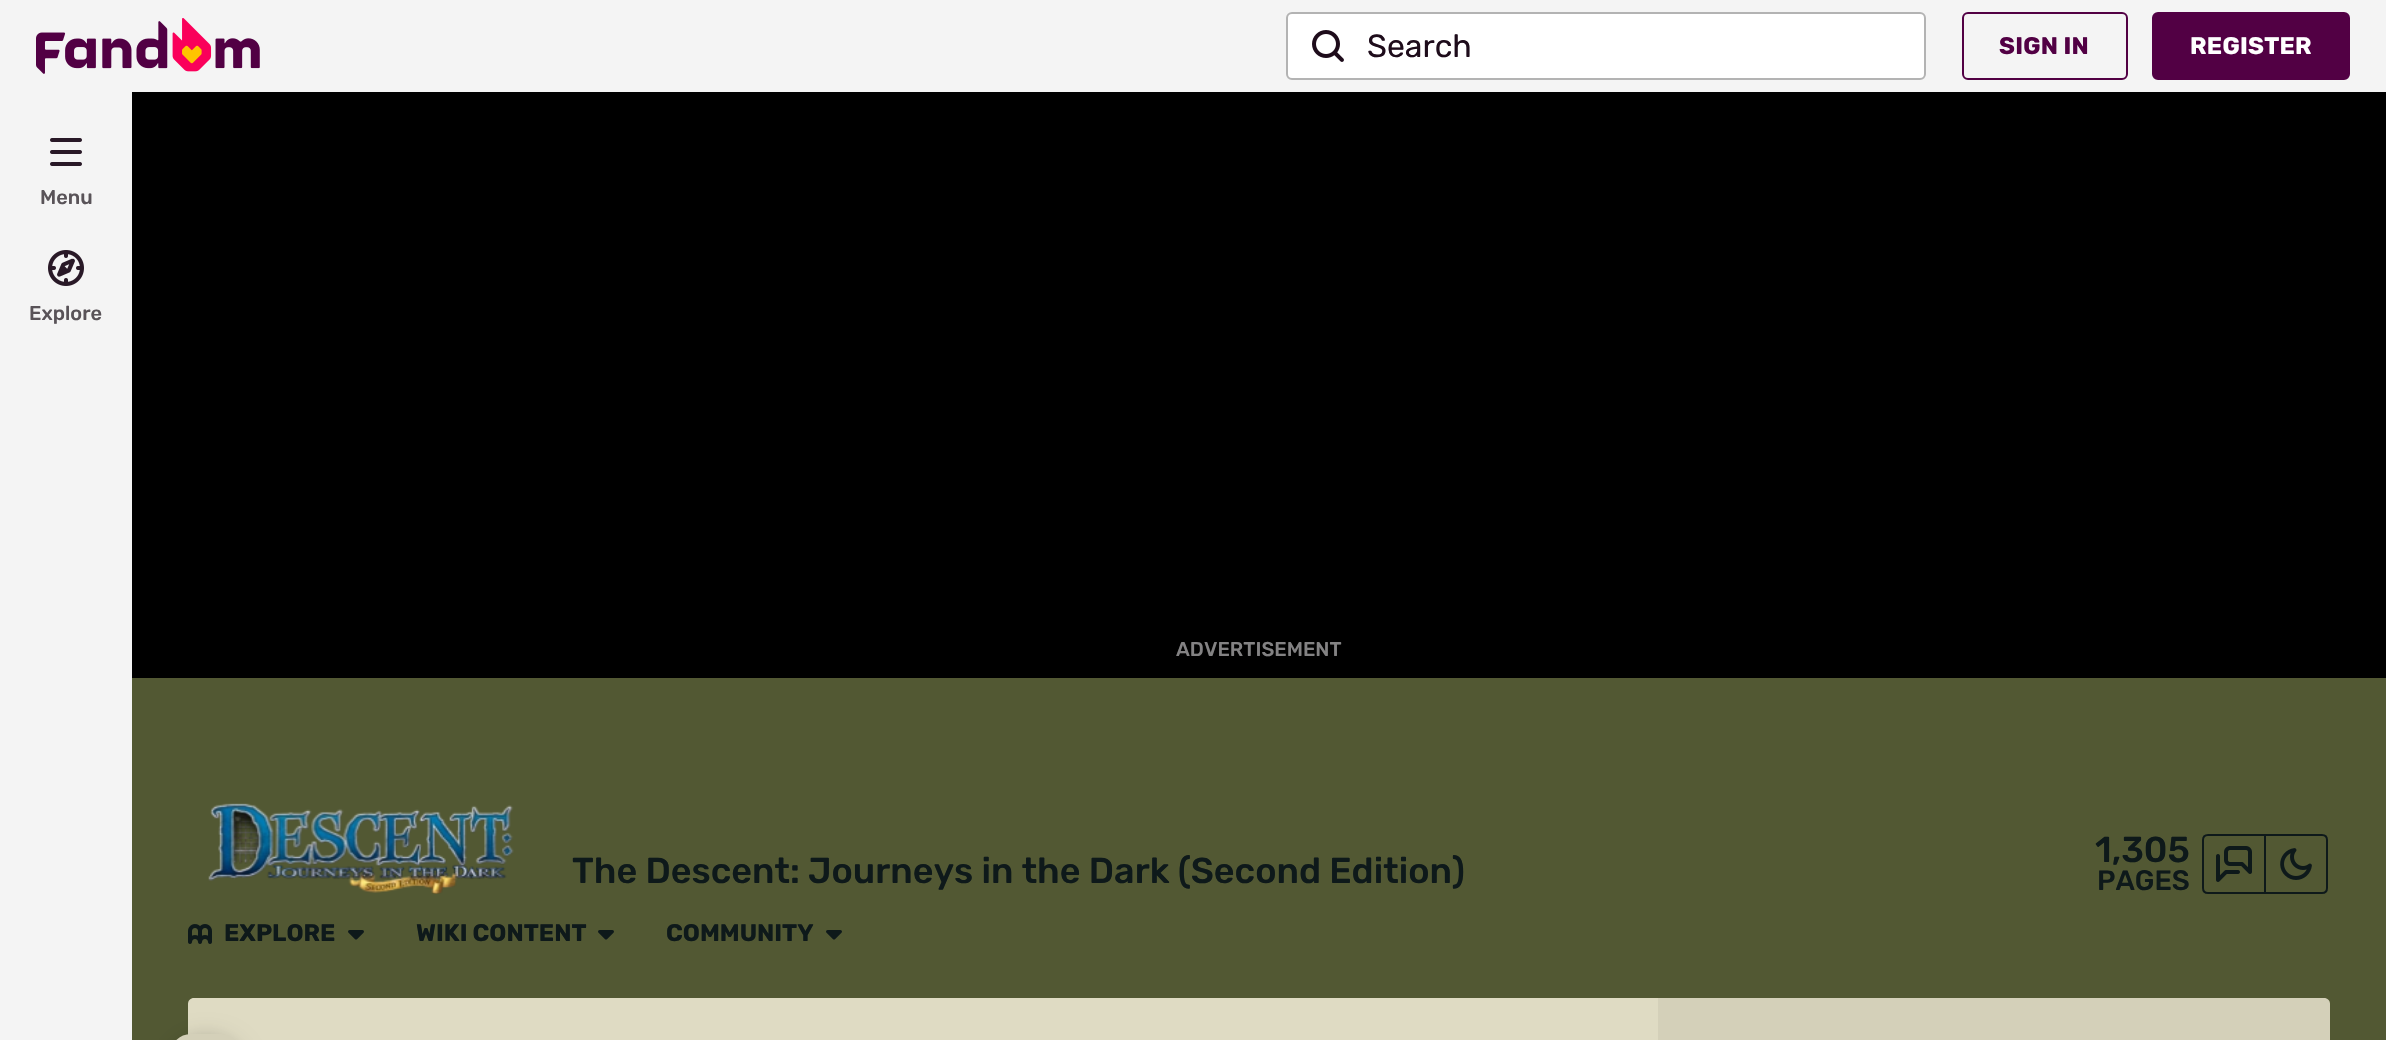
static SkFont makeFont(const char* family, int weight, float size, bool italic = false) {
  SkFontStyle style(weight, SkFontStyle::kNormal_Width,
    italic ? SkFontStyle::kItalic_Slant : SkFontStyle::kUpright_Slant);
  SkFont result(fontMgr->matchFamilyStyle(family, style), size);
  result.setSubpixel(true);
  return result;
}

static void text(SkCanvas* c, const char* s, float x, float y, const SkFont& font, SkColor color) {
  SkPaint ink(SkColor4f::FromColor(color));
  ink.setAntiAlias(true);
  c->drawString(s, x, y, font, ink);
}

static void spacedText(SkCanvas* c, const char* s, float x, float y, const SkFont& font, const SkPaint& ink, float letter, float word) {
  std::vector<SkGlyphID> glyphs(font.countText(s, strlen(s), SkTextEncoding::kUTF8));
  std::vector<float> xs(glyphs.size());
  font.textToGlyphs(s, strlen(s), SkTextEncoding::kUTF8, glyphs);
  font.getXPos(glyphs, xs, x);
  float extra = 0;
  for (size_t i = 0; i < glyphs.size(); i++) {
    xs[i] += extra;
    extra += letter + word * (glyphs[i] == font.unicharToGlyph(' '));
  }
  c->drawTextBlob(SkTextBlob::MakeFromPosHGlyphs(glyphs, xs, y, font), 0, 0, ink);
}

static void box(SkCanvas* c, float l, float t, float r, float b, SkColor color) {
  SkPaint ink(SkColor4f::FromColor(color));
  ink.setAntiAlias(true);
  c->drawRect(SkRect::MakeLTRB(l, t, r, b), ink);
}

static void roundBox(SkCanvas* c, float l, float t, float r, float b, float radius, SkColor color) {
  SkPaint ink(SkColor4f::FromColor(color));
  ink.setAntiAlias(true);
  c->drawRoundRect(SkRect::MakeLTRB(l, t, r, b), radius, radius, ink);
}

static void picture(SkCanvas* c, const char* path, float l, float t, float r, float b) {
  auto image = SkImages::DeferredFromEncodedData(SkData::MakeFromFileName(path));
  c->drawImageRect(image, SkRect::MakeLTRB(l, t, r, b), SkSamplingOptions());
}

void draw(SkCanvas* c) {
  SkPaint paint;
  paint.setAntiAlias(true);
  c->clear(0xff525833);
  box(c, 0, 0, 2386, 92, 0xfff4f4f4);
  picture(c, "img_01.png", 36, 18, 260, 74);
  paint.setColor(0xffffffff);
  c->drawRoundRect(SkRect::MakeLTRB(1287, 13, 1925, 79), 5, 5, paint);
  paint.setStyle(SkPaint::kStroke_Style);
  paint.setStrokeWidth(2);
  paint.setColor(0xffb3b3b3);
  c->drawRoundRect(SkRect::MakeLTRB(1287, 13, 1925, 79), 5, 5, paint);
  picture(c, "img_02.png", 1312, 30, 1344, 62);
  SkFont face1 = makeFont("Rubik", 400, 32);
  text(c, "Search", 1367, 57, face1, 0xff1e0c1b);
  paint.setColor(0xff520044);
  c->drawRoundRect(SkRect::MakeLTRB(1963, 13, 2127, 79), 5, 5, paint);
  SkFont face2 = makeFont("Rubik", 700, 24);
  paint.setStyle(SkPaint::kFill_Style);
  spacedText(c, "SIGN IN", 1999, 54, face2, paint, 0.25f, 0);
  c->drawRoundRect(SkRect::MakeLTRB(2153, 13, 2349, 79), 5, 5, paint);
  paint.setStyle(SkPaint::kStroke_Style);
  c->drawRoundRect(SkRect::MakeLTRB(2153, 13, 2349, 79), 5, 5, paint);
  paint.setStyle(SkPaint::kFill_Style);
  paint.setColor(0xffffffff);
  spacedText(c, "REGISTER", 2190, 54, face2, paint, 0.25f, 0);
  box(c, 0, 92, 132, 1040, 0xfff4f4f4);
  picture(c, "img_03.png", 50, 138, 82, 166);
  SkFont face3 = makeFont("Rubik", 500, 20);
  text(c, "Menu", 40, 204, face3, 0xff595358);
  picture(c, "img_04.png", 48, 250, 84, 286);
  text(c, "Explore", 29, 320, face3, 0xff595358);
  box(c, 132, 92, 2386, 678, 0xff000000);
  text(c, "ADVERTISEMENT", 1176, 656, face3, 0xff838283);
  picture(c, "img_05.png", 208, 803, 514, 894);
  SkFont face4 = makeFont("Rubik", 500, 36);
  text(c, "The Descent: Journeys in the Dark (Second Edition)", 572, 883, face4, 0xff0e191a);
  text(c, "1,305", 2095, 862, face4, 0xff0e191a);
  SkFont face5 = makeFont("Rubik", 500, 28);
  text(c, "PAGES", 2097, 890, face5, 0xff0e191a);
  paint.setStyle(SkPaint::kStroke_Style);
  paint.setColor(0xff0e191a);
  c->drawPath(SkPathBuilder().moveTo(2208, 835).lineTo(2265, 835).lineTo(2265, 893).lineTo(2208, 893).cubicTo(2205, 893, 2203, 891, 2203, 888).lineTo(2203, 840).cubicTo(2203, 837, 2205, 835, 2208, 835).close().detach(), paint);
  picture(c, "img_06.png", 2216, 846, 2252, 882);
  c->drawPath(SkPathBuilder().moveTo(2265, 835).lineTo(2322, 835).cubicTo(2325, 835, 2327, 837, 2327, 840).lineTo(2327, 888).cubicTo(2327, 891, 2325, 893, 2322, 893).lineTo(2265, 893).close().detach(), paint);
  picture(c, "img_07.png", 2280, 848, 2312, 880);
  picture(c, "img_08.png", 188, 924, 212, 944);
  text(c, "EXPLORE", 224, 941, face2, 0xff0e191a);
  picture(c, "img_09.png", 348, 930, 364, 940);
  text(c, "WIKI CONTENT", 416, 941, face2, 0xff0e191a);
  picture(c, "img_09.png", 598, 930, 614, 940);
  text(c, "COMMUNITY", 666, 941, face2, 0xff0e191a);
  picture(c, "img_09.png", 826, 930, 842, 940);
  paint.setStyle(SkPaint::kFill_Style);
  paint.setColor(0xffdfdbc3);
  c->drawPath(SkPathBuilder().moveTo(194, 998).lineTo(1658, 998).lineTo(1658, 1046).lineTo(194, 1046).cubicTo(190.5f, 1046, 188, 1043.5f, 188, 1040).lineTo(188, 1004).cubicTo(188, 1000.5f, 190.5f, 998, 194, 998).close().detach(), paint);
  paint.setColor(0x4d000000);
  paint.setMaskFilter(SkMaskFilter::MakeBlur(kNormal_SkBlurStyle, 12));
  c->drawRoundRect(SkRect::MakeLTRB(170, 1040, 242, 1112), 36, 36, paint);
  paint.setMaskFilter(nullptr);
  roundBox(c, 170, 1034, 242, 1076, 36, 0xffd4d0b9);
  paint.setColor(0xffd4d0b9);
  c->drawPath(SkPathBuilder().moveTo(1658, 998).lineTo(2324, 998).cubicTo(2327.5f, 998, 2330, 1000.5f, 2330, 1004).lineTo(2330, 1040).cubicTo(2330, 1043.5f, 2327.5f, 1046, 2324, 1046).lineTo(1658, 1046).close().detach(), paint);
}
